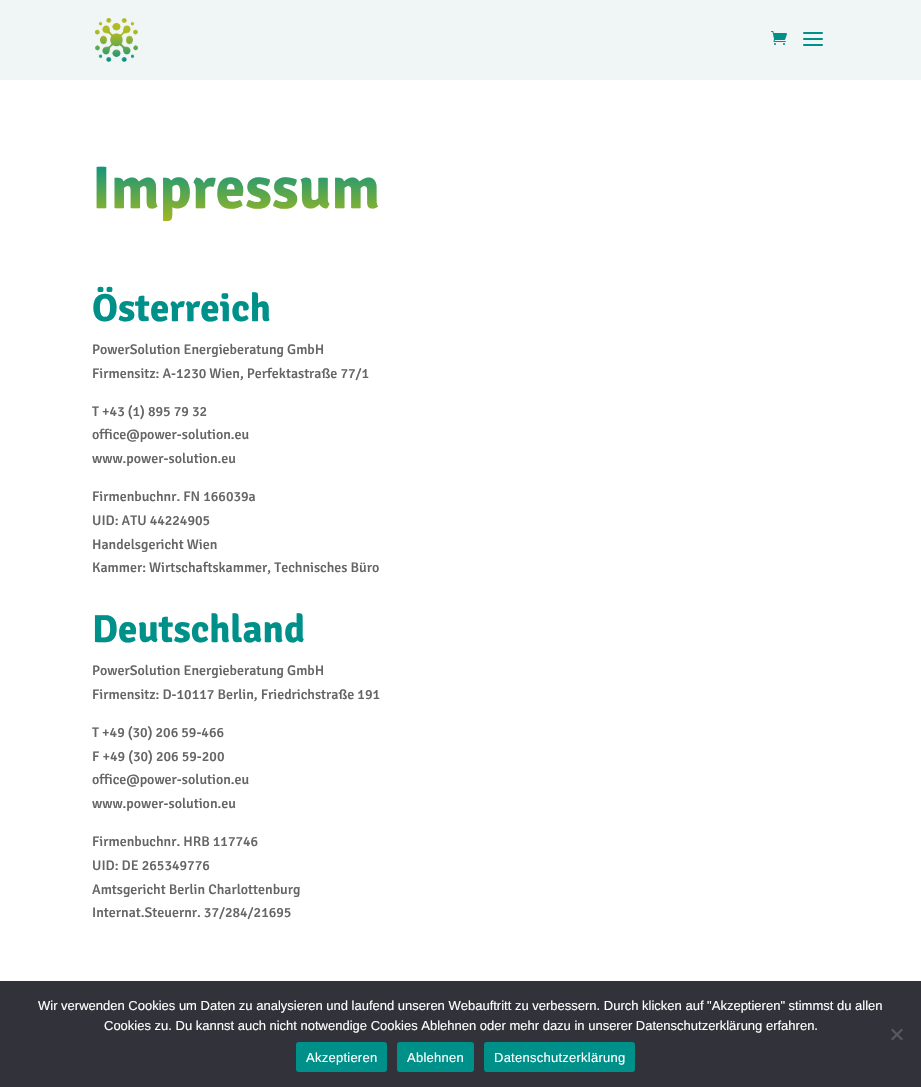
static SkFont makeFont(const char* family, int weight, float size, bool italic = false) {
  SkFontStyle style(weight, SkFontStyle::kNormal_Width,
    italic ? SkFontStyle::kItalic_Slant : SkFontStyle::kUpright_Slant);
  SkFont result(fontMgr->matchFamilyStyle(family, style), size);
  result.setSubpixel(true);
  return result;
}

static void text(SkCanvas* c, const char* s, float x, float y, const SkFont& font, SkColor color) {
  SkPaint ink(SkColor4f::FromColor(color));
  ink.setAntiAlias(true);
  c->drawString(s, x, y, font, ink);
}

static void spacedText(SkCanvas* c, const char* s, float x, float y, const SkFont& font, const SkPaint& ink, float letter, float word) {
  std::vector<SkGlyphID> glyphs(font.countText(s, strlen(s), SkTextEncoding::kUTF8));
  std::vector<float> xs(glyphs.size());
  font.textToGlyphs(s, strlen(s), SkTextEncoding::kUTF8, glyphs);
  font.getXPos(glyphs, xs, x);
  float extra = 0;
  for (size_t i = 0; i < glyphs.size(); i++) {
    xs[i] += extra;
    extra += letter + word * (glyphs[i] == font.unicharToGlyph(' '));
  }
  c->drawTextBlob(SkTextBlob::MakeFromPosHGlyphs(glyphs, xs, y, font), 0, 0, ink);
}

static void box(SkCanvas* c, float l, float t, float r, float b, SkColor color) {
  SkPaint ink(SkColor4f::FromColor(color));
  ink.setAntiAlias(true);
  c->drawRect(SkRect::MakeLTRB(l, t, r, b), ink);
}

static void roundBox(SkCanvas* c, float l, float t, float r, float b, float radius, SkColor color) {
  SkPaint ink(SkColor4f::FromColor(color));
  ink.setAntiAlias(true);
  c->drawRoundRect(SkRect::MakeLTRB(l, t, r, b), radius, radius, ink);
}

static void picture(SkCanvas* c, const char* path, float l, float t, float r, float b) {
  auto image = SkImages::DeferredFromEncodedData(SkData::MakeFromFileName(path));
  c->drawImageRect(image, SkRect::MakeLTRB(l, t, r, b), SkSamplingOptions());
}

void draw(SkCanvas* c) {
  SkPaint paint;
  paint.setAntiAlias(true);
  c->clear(0xffffffff);
  box(c, 0, 0, 921, 80, 0xfff0f5f5);
  picture(c, "img_01.png", 95, 18, 138, 62);
  picture(c, "img_02.png", 771, 31, 787, 45);
  picture(c, "img_03.png", 803, 32, 823, 46);
  SkFont face1 = makeFont("Signika", 700, 60);
  {
    const SkColor colors[] = {0xffb5bd10, 0xff00908a};
    const float stops[] = {0, 1};
    const SkPoint ends[] = {{460, 229}, {460, 159}};
    paint.setShader(SkGradientShader::MakeLinear(ends, colors, stops, 2, SkTileMode::kClamp));
    paint.setAlpha(255);
  }
  c->drawString("Impressum", 92, 208, face1, paint);
  SkFont face2 = makeFont("Signika", 700, 39);
  text(c, "Österreich", 92, 321, face2, 0xff00908a);
  SkFont face3 = makeFont("Signika", 500, 14);
  text(c, "PowerSolution Energieberatung GmbH", 92, 354, face3, 0xff666565);
  text(c, "Firmensitz: A-1230 Wien, Perfektastraße 77/1", 92, 378, face3, 0xff666565);
  text(c, "T +43 (1) 895 79 32", 92, 416, face3, 0xff666565);
  text(c, "office@power-solution.eu", 92, 439, face3, 0xff666565);
  text(c, "www.power-solution.eu", 92, 463, face3, 0xff666565);
  text(c, "Firmenbuchnr. FN 166039a", 92, 501, face3, 0xff666565);
  text(c, "UID: ATU 44224905", 92, 525, face3, 0xff666565);
  text(c, "Handelsgericht Wien", 92, 549, face3, 0xff666565);
  text(c, "Kammer: Wirtschaftskammer, Technisches Büro", 92, 572, face3, 0xff666565);
  text(c, "Deutschland", 92, 642, face2, 0xff00908a);
  text(c, "PowerSolution Energieberatung GmbH", 92, 675, face3, 0xff666565);
  text(c, "Firmensitz: D-10117 Berlin, Friedrichstraße 191", 92, 699, face3, 0xff666565);
  text(c, "T +49 (30) 206 59-466", 92, 737, face3, 0xff666565);
  text(c, "F +49 (30) 206 59-200", 92, 761, face3, 0xff666565);
  text(c, "office@power-solution.eu", 92, 784, face3, 0xff666565);
  text(c, "www.power-solution.eu", 92, 808, face3, 0xff666565);
  text(c, "Firmenbuchnr. HRB 117746", 92, 846, face3, 0xff666565);
  text(c, "UID: DE 265349776", 92, 870, face3, 0xff666565);
  text(c, "Amtsgericht Berlin Charlottenburg", 92, 894, face3, 0xff666565);
  text(c, "Internat.Steuernr. 37/284/21695", 92, 917, face3, 0xff666565);
  box(c, 0, 981, 921, 1087, 0xff32323a);
  SkFont face4 = makeFont("Liberation Sans", 400, 13);
  text(c, "Wir verwenden Cookies um Daten zu analysieren und laufend unseren Webauftritt zu verbessern. Durch klicken auf \"Akzeptieren\" stimmst du allen", 38, 1010, face4, 0xffffffff);
  text(c, "Cookies zu. Du kannst auch nicht notwendige Cookies Ablehnen oder mehr dazu in unserer Datenschutzerklärung erfahren.", 104, 1030, face4, 0xffffffff);
  paint.setShader(nullptr);
  paint.setColor(0xff59595d);
  c->drawPath(SkPathBuilder().moveTo(901.5f, 1028.5f).lineTo(903, 1030).lineTo(892.5f, 1040.5f).lineTo(891, 1039).close().detach(), paint);
  c->drawPath(SkPathBuilder().moveTo(891, 1030).lineTo(892.5f, 1028.5f).lineTo(903, 1039).lineTo(901.5f, 1040.5f).close().detach(), paint);
  roundBox(c, 296, 1042, 387, 1072, 3, 0xff00908a);
  paint.setColor(0xffffffff);
  spacedText(c, "Akzeptieren", 306, 1062, face4, paint, 0.25f, 0);
  roundBox(c, 397, 1042, 474, 1072, 3, 0xff00908a);
  spacedText(c, "Ablehnen", 407, 1062, face4, paint, 0.25f, 0);
  roundBox(c, 484, 1042, 635, 1072, 3, 0xff00908a);
  spacedText(c, "Datenschutzerklärung", 494, 1062, face4, paint, 0.25f, 0);
}
